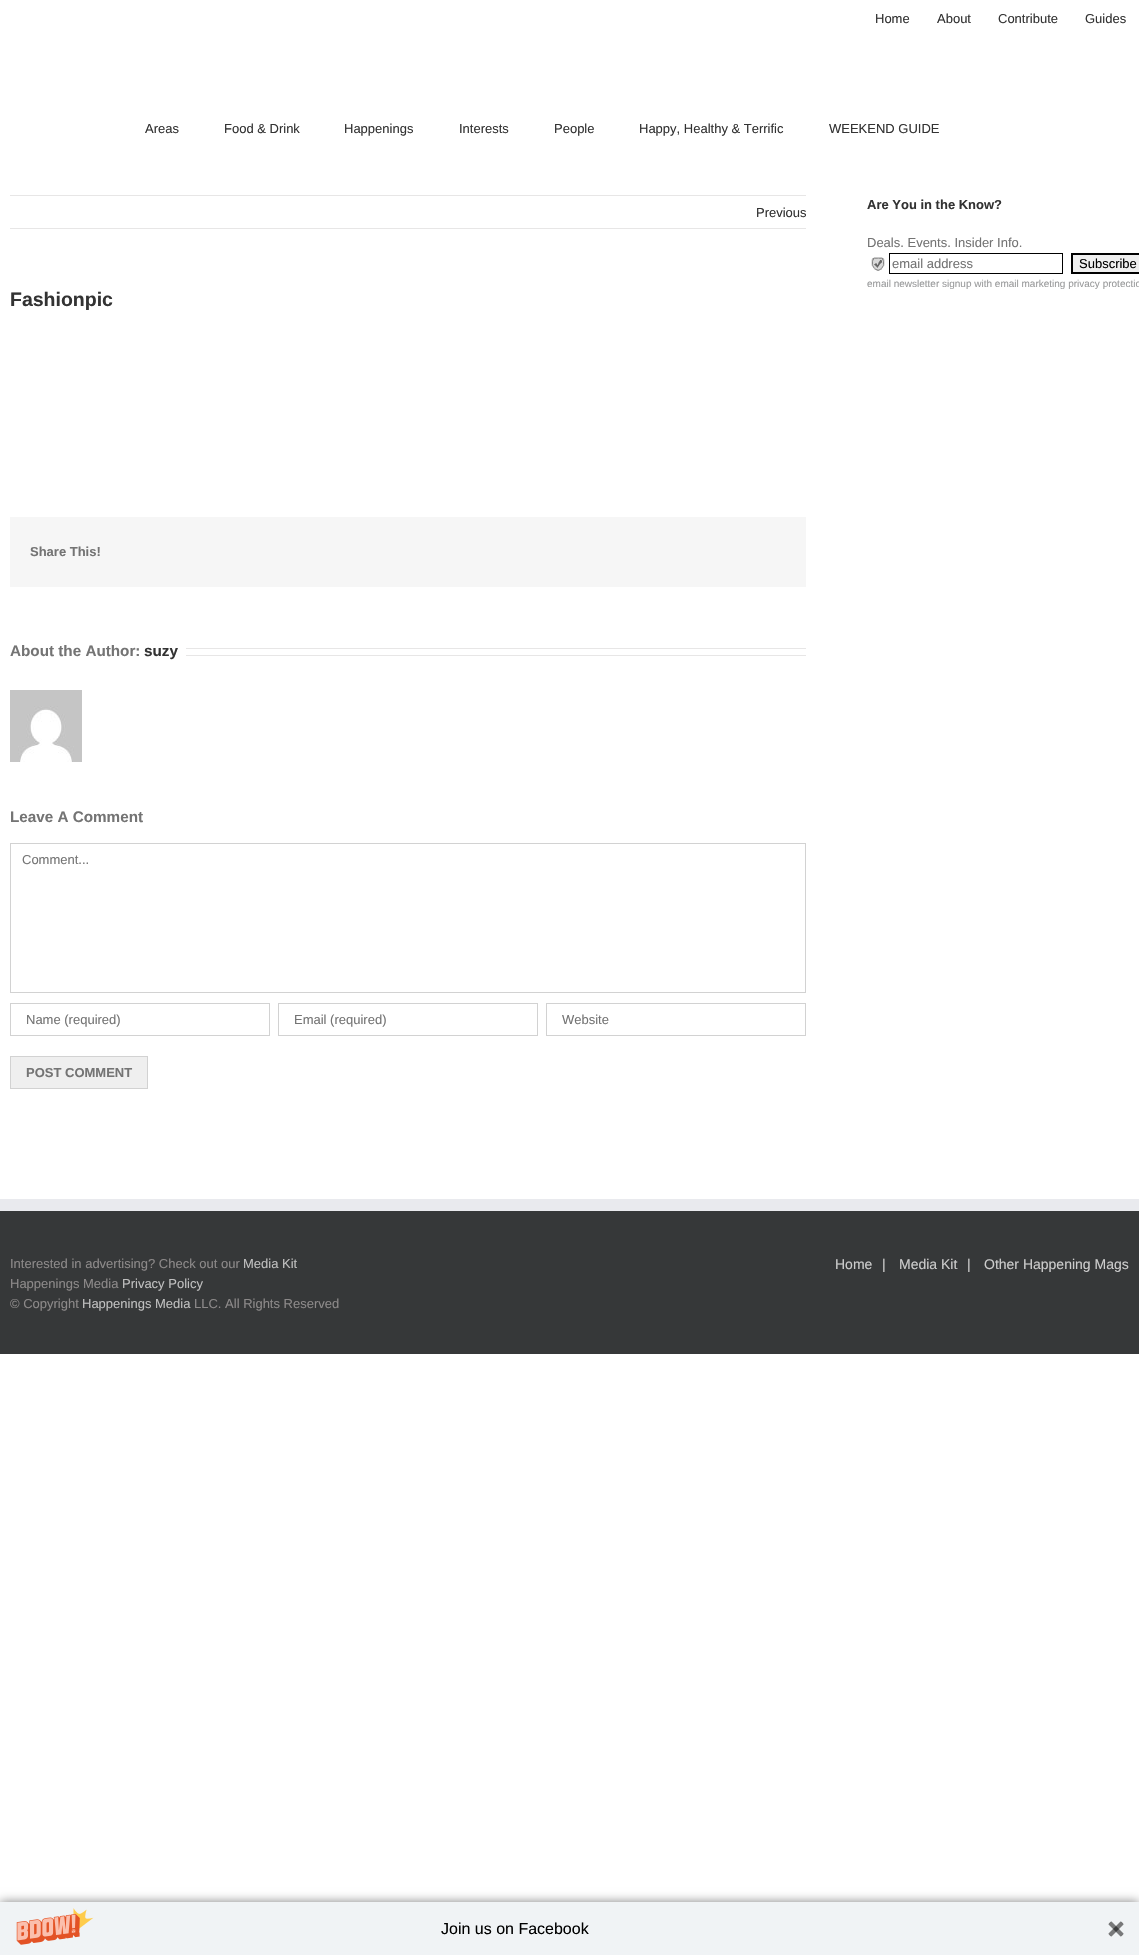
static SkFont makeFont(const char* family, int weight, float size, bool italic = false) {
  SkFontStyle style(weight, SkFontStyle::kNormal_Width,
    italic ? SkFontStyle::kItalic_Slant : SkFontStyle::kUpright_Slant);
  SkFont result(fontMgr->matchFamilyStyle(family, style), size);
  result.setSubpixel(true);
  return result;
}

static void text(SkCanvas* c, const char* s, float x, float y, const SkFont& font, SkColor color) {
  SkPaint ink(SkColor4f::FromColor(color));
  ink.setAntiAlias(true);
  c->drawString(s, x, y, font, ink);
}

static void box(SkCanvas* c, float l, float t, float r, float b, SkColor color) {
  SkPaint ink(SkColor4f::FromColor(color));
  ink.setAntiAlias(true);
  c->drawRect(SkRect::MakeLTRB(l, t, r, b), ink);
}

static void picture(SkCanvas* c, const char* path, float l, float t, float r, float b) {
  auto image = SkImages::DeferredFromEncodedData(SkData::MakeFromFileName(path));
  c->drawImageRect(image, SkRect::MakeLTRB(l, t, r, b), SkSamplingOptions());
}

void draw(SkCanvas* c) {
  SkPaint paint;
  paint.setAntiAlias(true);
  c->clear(0xffffffff);
  SkFont face1 = makeFont("Liberation Sans", 400, 13);
  text(c, "Home", 875, 23, face1, 0xff333333);
  text(c, "About", 937, 23, face1, 0xff333333);
  text(c, "Contribute", 998, 23, face1, 0xff333333);
  text(c, "Guides", 1085, 23, face1, 0xff333333);
  text(c, "Areas", 145, 133, face1, 0xff333333);
  text(c, "Food & Drink", 224, 133, face1, 0xff333333);
  text(c, "Happenings", 344, 133, face1, 0xff333333);
  text(c, "Interests", 459, 133, face1, 0xff333333);
  text(c, "People", 554, 133, face1, 0xff333333);
  text(c, "Happy, Healthy & Terrific", 639, 133, face1, 0xff333333);
  text(c, "WEEKEND GUIDE", 829, 133, face1, 0xff333333);
  box(c, 10, 195, 806, 196, 0xffe7e6e6);
  box(c, 10, 228, 806, 229, 0xffe7e6e6);
  text(c, "Previous", 756, 217, face1, 0xff333333);
  SkFont face2 = makeFont("Liberation Sans", 700, 19.5f);
  text(c, "Fashionpic", 10, 306, face2, 0xff333333);
  box(c, 10, 517, 806, 587, 0xfff6f6f6);
  SkFont face3 = makeFont("Liberation Sans", 700, 13);
  text(c, "Share This!", 30, 556, face3, 0xff747474);
  SkFont face4 = makeFont("Liberation Sans", 700, 15.25f);
  text(c, "About the Author:", 10, 656, face4, 0xff747474);
  text(c, "suzy", 144, 656, face4, 0xff333333);
  box(c, 186, 648, 806, 649, 0xffe7e6e6);
  box(c, 186, 655, 806, 656, 0xffe7e6e6);
  picture(c, "img_01.png", 10, 690, 82, 762);
  text(c, "Leave A Comment", 10, 822, face4, 0xff747474);
  paint.setStyle(SkPaint::kStroke_Style);
  paint.setStrokeWidth(1);
  paint.setColor(0xffd2d2d2);
  c->drawRect(SkRect::MakeLTRB(10.5f, 843.5f, 805.5f, 992.5f), paint);
  text(c, "Comment...", 22, 864, face1, 0xff747474);
  c->drawRect(SkRect::MakeLTRB(10.5f, 1003.5f, 269.5f, 1035.5f), paint);
  text(c, "Name (required)", 26, 1024, face1, 0xff747474);
  c->drawRect(SkRect::MakeLTRB(278.5f, 1003.5f, 537.5f, 1035.5f), paint);
  text(c, "Email (required)", 294, 1024, face1, 0xff747474);
  c->drawRect(SkRect::MakeLTRB(546.5f, 1003.5f, 805.5f, 1035.5f), paint);
  text(c, "Website", 562, 1024, face1, 0xff747474);
  paint.setStyle(SkPaint::kFill_Style);
  paint.setColor(0xffefefef);
  c->drawRect(SkRect::MakeLTRB(10.5f, 1056.5f, 147.5f, 1088.5f), paint);
  paint.setStyle(SkPaint::kStroke_Style);
  paint.setColor(0xffd2d2d2);
  c->drawRect(SkRect::MakeLTRB(10.5f, 1056.5f, 147.5f, 1088.5f), paint);
  text(c, "POST COMMENT", 26, 1077, face3, 0xff747474);
  text(c, "Are You in the Know?", 867, 209, face3, 0xff333333);
  text(c, "Deals. Events. Insider Info.", 867, 247, face1, 0xff747474);
  picture(c, "img_02.png", 871, 257, 885, 271);
  paint.setColor(0xff000000);
  c->drawRect(SkRect::MakeLTRB(889.5f, 253.5f, 1062.5f, 273.5f), paint);
  text(c, "email address", 892, 268, face1, 0xff747474);
  paint.setStyle(SkPaint::kFill_Style);
  paint.setColor(0xffefefef);
  c->drawRect(SkRect::MakeLTRB(1072, 254, 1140, 273), paint);
  paint.setStyle(SkPaint::kStroke_Style);
  paint.setStrokeWidth(2);
  paint.setColor(0xff000000);
  c->drawRect(SkRect::MakeLTRB(1072, 254, 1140, 273), paint);
  text(c, "Subscribe", 1079, 268, face1, 0xff000000);
  SkFont face5 = makeFont("Liberation Sans", 400, 10);
  text(c, "email newsletter signup with email marketing privacy protectio", 867, 287, face5, 0xff999a9b);
  box(c, 0, 1211, 1139, 1354, 0xff363839);
  box(c, 0, 1199, 1139, 1211, 0xffe9eaee);
  text(c, "Interested in advertising? Check out our", 10, 1268, face1, 0xff8c8989);
  text(c, "Media Kit", 243, 1268, face1, 0xffbfbfbf);
  text(c, "Happenings Media", 10, 1288, face1, 0xff8c8989);
  text(c, "Privacy Policy", 122, 1288, face1, 0xffbfbfbf);
  text(c, "© Copyright", 10, 1308, face1, 0xff8c8989);
  text(c, "Happenings Media", 82, 1308, face1, 0xffbfbfbf);
  text(c, "LLC. All Rights Reserved", 194, 1308, face1, 0xff8c8989);
  SkFont face6 = makeFont("Liberation Sans", 400, 14);
  text(c, "Home", 835, 1269, face6, 0xffcccccc);
  text(c, "|", 882, 1269, face6, 0xffcccccc);
  text(c, "Media Kit", 899, 1269, face6, 0xffcccccc);
  text(c, "|", 967, 1269, face6, 0xffcccccc);
  text(c, "Other Happening Mags", 984, 1269, face6, 0xffcccccc);
  paint.setStyle(SkPaint::kFill_Style);
  paint.setColor(0x80000000);
  paint.setMaskFilter(SkMaskFilter::MakeBlur(kNormal_SkBlurStyle, 5));
  c->drawRect(SkRect::MakeLTRB(0, 1902, 1139, 1955), paint);
  paint.setMaskFilter(nullptr);
  box(c, 0, 1902, 1139, 1955, 0xfff0f3f5);
  picture(c, "img_03.png", 16, 1908, 94, 1945);
  SkFont face7 = makeFont("Liberation Sans", 400, 16);
  text(c, "Join us on Facebook", 441, 1934, face7, 0xff000000);
  picture(c, "img_04.png", 1108, 1921, 1124, 1937);
}
